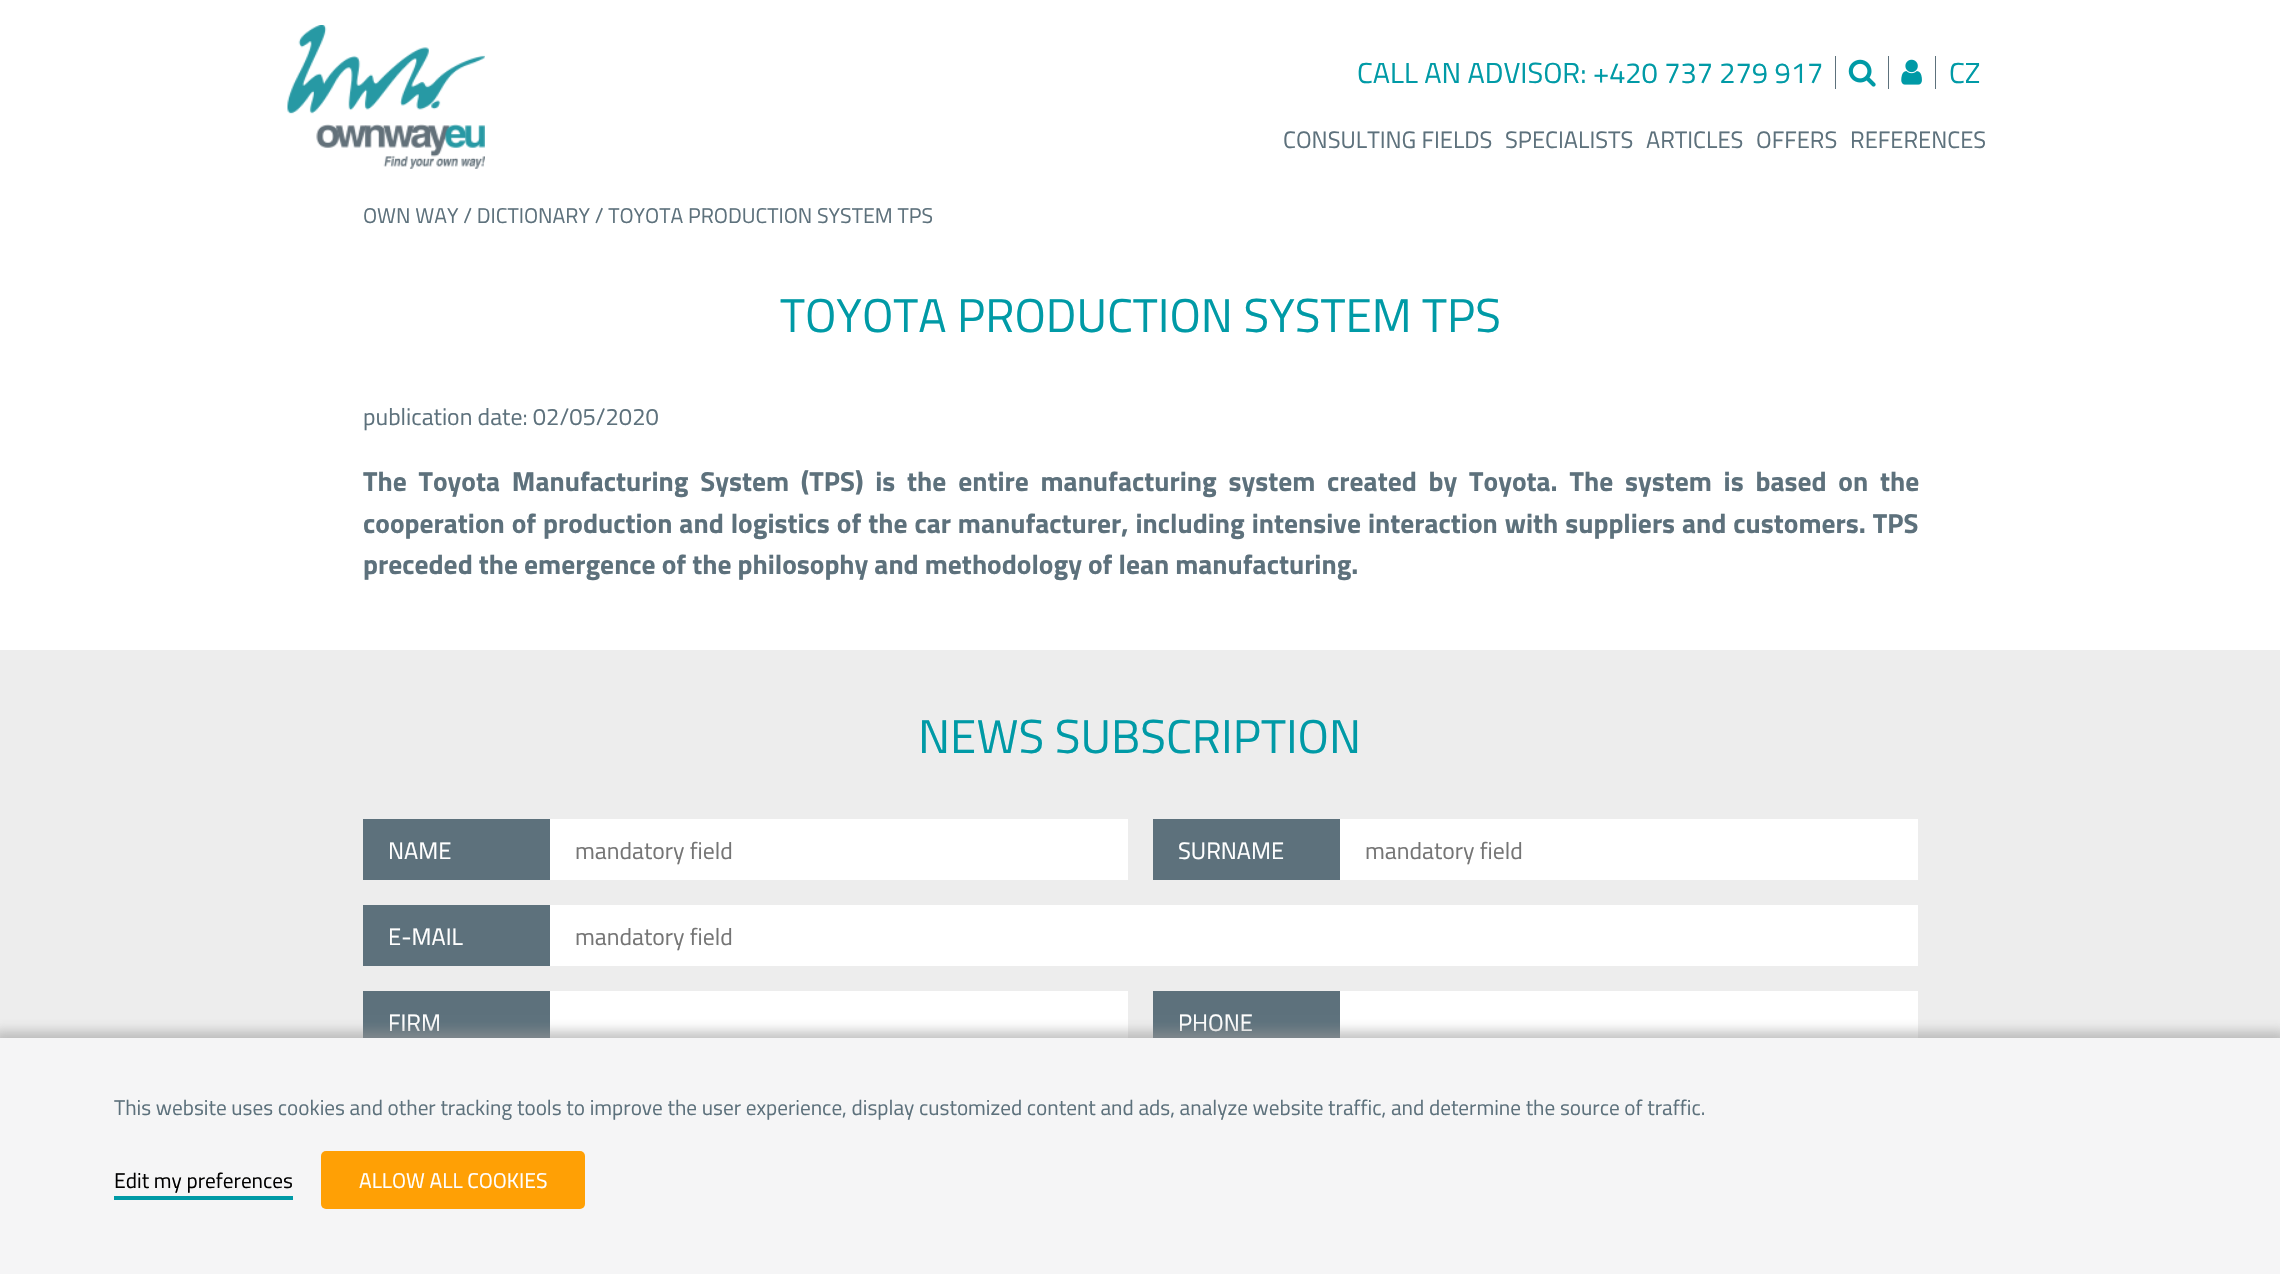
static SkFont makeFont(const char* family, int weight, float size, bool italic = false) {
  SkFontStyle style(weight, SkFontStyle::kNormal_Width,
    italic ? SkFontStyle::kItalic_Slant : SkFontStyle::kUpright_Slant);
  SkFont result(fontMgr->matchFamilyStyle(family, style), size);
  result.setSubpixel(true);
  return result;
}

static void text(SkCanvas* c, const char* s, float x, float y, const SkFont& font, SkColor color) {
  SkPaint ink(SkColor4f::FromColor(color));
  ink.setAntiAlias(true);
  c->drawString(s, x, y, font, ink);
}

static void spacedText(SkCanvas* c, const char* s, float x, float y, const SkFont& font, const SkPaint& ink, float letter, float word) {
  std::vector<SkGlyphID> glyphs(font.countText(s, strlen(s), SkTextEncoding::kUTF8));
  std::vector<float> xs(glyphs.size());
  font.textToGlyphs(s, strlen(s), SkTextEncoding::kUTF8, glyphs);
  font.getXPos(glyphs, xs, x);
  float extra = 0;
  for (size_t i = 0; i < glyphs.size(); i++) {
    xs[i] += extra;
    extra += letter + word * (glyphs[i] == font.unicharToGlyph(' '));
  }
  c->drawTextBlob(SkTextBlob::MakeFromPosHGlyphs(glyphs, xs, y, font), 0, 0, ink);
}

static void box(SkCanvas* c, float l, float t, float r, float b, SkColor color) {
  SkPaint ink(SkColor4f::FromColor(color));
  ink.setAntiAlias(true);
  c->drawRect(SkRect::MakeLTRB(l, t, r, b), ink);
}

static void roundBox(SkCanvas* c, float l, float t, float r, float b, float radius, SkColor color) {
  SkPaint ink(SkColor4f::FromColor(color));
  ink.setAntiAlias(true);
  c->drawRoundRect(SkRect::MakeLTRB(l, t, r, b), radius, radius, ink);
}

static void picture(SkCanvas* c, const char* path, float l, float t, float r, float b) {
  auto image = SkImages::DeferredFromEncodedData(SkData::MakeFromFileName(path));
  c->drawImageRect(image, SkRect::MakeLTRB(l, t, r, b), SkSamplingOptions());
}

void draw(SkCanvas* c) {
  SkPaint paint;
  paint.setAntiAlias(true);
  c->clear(0xffffffff);
  picture(c, "img_01.png", 287, 25, 485, 169);
  SkFont face1 = makeFont("Titillium Web", 400, 29);
  text(c, "CALL AN ADVISOR: +420 737 279 917", 1357, 83, face1, 0xff009aa6);
  box(c, 1835, 56, 1836, 89, 0xff5d717c);
  picture(c, "img_02.png", 1848, 59, 1876, 87);
  box(c, 1888, 56, 1889, 89, 0xff5d717c);
  picture(c, "img_03.png", 1901, 59, 1922, 85);
  box(c, 1935, 56, 1936, 89, 0xff5d717c);
  text(c, "CZ", 1949, 83, face1, 0xff009aa6);
  SkFont face2 = makeFont("Titillium Web", 400, 23.75f);
  text(c, "CONSULTING FIELDS", 1283, 148, face2, 0xff5d717c);
  text(c, "SPECIALISTS", 1505, 148, face2, 0xff5d717c);
  text(c, "ARTICLES", 1646, 148, face2, 0xff5d717c);
  text(c, "OFFERS", 1756, 148, face2, 0xff5d717c);
  text(c, "REFERENCES", 1850, 148, face2, 0xff5d717c);
  SkFont face3 = makeFont("Titillium Web", 400, 21.4f);
  text(c, "OWN WAY / DICTIONARY / TOYOTA PRODUCTION SYSTEM TPS", 363, 223, face3, 0xff5d717c);
  SkFont face4 = makeFont("Titillium Web", 400, 47.5f);
  text(c, "TOYOTA PRODUCTION SYSTEM TPS", 780, 332, face4, 0xff009aa6);
  text(c, "publication date: 02/05/2020", 363, 425, face2, 0xff5d717c);
  SkFont face5 = makeFont("Titillium Web", 700, 27.5f);
  paint.setColor(0xff5d717c);
  spacedText(c, "The Toyota Manufacturing System (TPS) is the entire manufacturing system created by Toyota. The system is based on the", 363, 491, face5, paint, 0, 5.75f);
  spacedText(c, "cooperation of production and logistics of the car manufacturer, including intensive interaction with suppliers and customers. TPS", 363, 533, face5, paint, 0, 0.9f);
  text(c, "preceded the emergence of the philosophy and methodology of lean manufacturing.", 363, 574, face5, 0xff5d717c);
  box(c, 0, 650, 2280, 1038, 0xffededed);
  text(c, "NEWS SUBSCRIPTION", 918, 753, face4, 0xff009aa6);
  box(c, 363, 819, 550, 880, 0xff5d717c);
  text(c, "NAME", 388, 859, face2, 0xffffffff);
  box(c, 550, 819, 1128, 880, 0xffffffff);
  text(c, "mandatory field", 575, 859, face2, 0xff757575);
  box(c, 1153, 819, 1340, 880, 0xff5d717c);
  text(c, "SURNAME", 1178, 859, face2, 0xffffffff);
  box(c, 1340, 819, 1918, 880, 0xffffffff);
  text(c, "mandatory field", 1365, 859, face2, 0xff757575);
  box(c, 363, 905, 550, 966, 0xff5d717c);
  text(c, "E-MAIL", 388, 945, face2, 0xffffffff);
  box(c, 550, 905, 1918, 966, 0xffffffff);
  text(c, "mandatory field", 575, 945, face2, 0xff757575);
  box(c, 363, 991, 550, 1038, 0xff5d717c);
  text(c, "FIRM", 388, 1031, face2, 0xffffffff);
  box(c, 550, 991, 1128, 1038, 0xffffffff);
  box(c, 1153, 991, 1340, 1038, 0xff5d717c);
  text(c, "PHONE", 1178, 1031, face2, 0xffffffff);
  box(c, 1340, 991, 1918, 1038, 0xffffffff);
  paint.setColor(0x94999999);
  paint.setMaskFilter(SkMaskFilter::MakeBlur(kNormal_SkBlurStyle, 5.5f));
  c->drawRect(SkRect::MakeLTRB(-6, 1031, 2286, 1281), paint);
  paint.setMaskFilter(nullptr);
  box(c, 0, 1038, 2280, 1274, 0xfff5f5f6);
  SkFont face6 = makeFont("Titillium Web", 400, 21.25f);
  text(c, "This website uses cookies and other tracking tools to improve the user experience, display customized content and ads, analyze website traffic, and determine the source of traffic.", 114, 1115, face6, 0xff5d717c);
  text(c, "Edit my preferences", 114, 1188, face6, 0xff000000);
  box(c, 114, 1196, 293, 1200, 0xff009aa6);
  roundBox(c, 321, 1151, 585, 1209, 5, 0xffffa005);
  text(c, "ALLOW ALL COOKIES", 359, 1188, face6, 0xffffffff);
}
